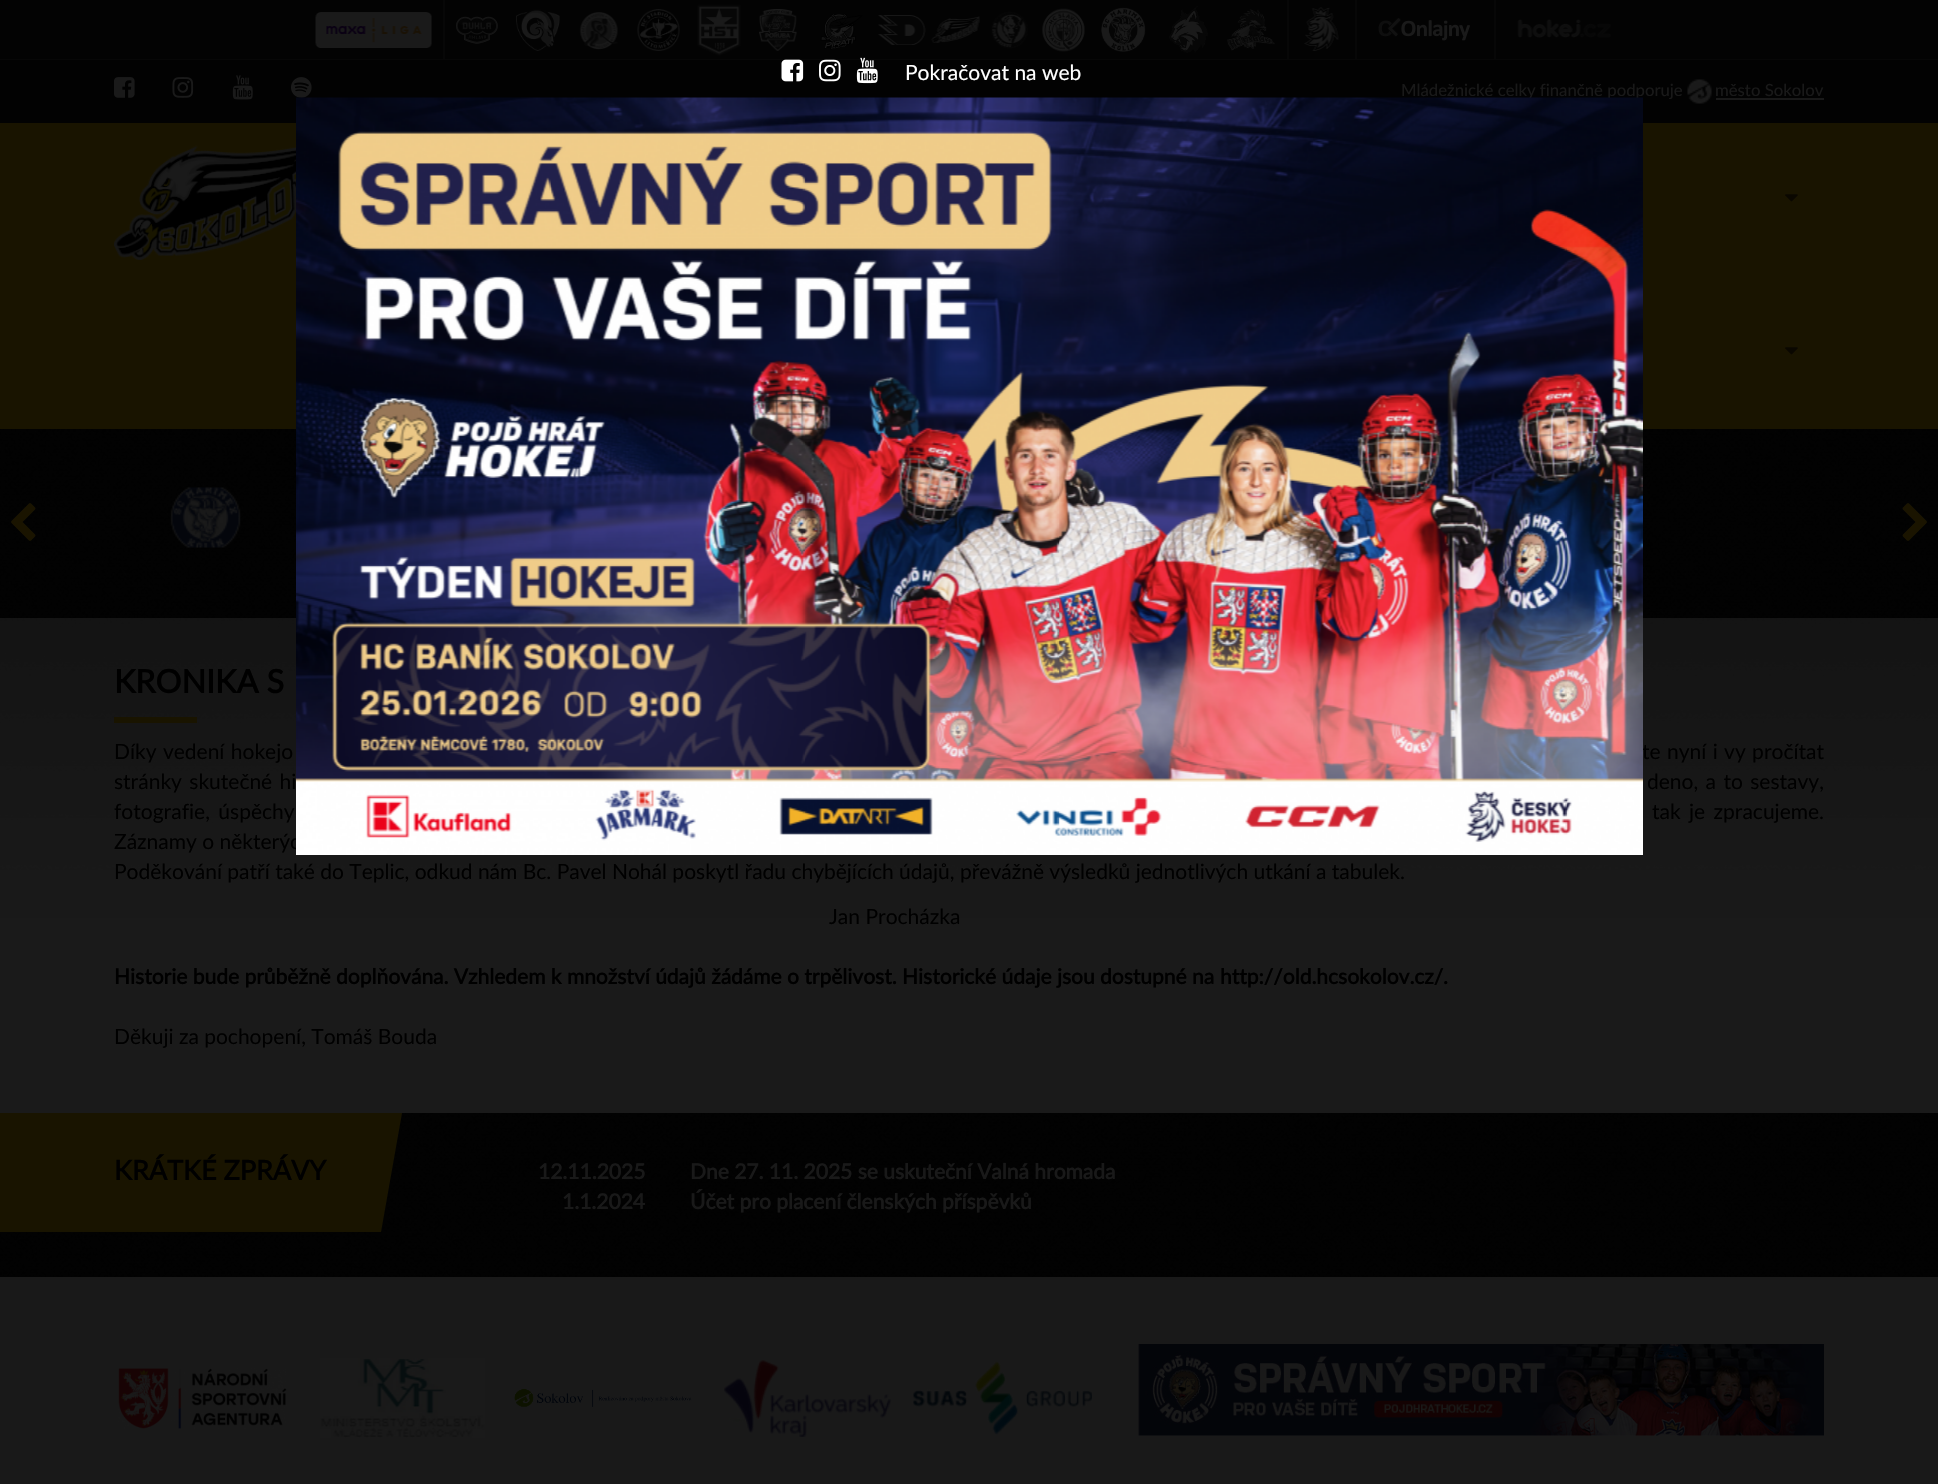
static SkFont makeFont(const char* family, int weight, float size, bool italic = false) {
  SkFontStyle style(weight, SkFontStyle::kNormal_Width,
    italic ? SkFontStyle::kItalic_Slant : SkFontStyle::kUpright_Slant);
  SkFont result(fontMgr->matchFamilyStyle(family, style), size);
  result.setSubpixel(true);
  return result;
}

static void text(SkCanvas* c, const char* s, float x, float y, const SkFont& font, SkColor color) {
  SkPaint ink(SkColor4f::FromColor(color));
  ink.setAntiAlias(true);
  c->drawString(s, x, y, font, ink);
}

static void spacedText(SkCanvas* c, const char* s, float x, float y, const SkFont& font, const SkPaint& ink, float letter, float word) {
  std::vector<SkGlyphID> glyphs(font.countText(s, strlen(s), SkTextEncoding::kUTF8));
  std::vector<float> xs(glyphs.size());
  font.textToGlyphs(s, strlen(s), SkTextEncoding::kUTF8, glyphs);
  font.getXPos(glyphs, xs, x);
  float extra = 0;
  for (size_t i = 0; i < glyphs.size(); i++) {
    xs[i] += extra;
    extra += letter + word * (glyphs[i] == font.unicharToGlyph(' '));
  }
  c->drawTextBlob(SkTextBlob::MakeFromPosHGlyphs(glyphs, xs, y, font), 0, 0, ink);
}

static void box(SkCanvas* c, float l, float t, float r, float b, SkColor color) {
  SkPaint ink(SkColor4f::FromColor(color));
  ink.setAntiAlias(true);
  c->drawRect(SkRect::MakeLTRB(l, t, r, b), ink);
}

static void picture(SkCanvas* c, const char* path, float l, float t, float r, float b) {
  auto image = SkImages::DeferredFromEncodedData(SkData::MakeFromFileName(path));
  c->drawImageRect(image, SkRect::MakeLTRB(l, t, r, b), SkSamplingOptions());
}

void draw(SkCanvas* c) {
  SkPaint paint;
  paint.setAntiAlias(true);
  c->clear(0xffffffff);
  picture(c, "img_01.png", 0, 429, 1938, 1277);
  box(c, 0, 0, 1938, 59, 0xff030303);
  box(c, 0, 59, 1938, 60, 0xff070707);
  picture(c, "img_02.png", 315, 12, 432, 48);
  box(c, 443, 0, 445, 60, 0xff070707);
  picture(c, "img_03.png", 456, 16, 498, 44);
  picture(c, "img_04.png", 516, 9, 560, 51);
  picture(c, "img_05.png", 579, 12, 618, 50);
  picture(c, "img_06.png", 637, 9, 680, 51);
  picture(c, "img_07.png", 697, 4, 741, 56);
  picture(c, "img_08.png", 759, 9, 797, 51);
  picture(c, "img_09.png", 820, 13, 863, 50);
  picture(c, "img_10.png", 878, 15, 926, 45);
  picture(c, "img_11.png", 931, 16, 980, 43);
  picture(c, "img_12.png", 991, 11, 1028, 49);
  picture(c, "img_13.png", 1042, 8, 1085, 52);
  picture(c, "img_14.png", 1101, 7, 1146, 52);
  picture(c, "img_15.png", 1169, 6, 1208, 53);
  picture(c, "img_16.png", 1227, 9, 1276, 51);
  box(c, 1287, 0, 1289, 60, 0xff070707);
  picture(c, "img_17.png", 1304, 7, 1339, 51);
  box(c, 1355, 0, 1357, 60, 0xff070707);
  picture(c, "img_18.png", 1378, 18, 1470, 41);
  box(c, 1494, 0, 1496, 60, 0xff070707);
  picture(c, "img_19.png", 1517, 19, 1611, 38);
  box(c, 0, 60, 1938, 123, 0xff020202);
  picture(c, "img_20.png", 781, 59, 804, 82);
  picture(c, "img_21.png", 819, 59, 841, 82);
  picture(c, "img_22.png", 856, 57, 878, 84);
  SkFont face1 = makeFont("Lato", 400, 21);
  text(c, "Pokračovat na web", 905, 80, face1, 0xffffffff);
  picture(c, "img_27.png", 291, 77, 312, 98);
  SkFont face2 = makeFont("Lato", 400, 16.75f);
  text(c, "Mládežnické celky finančně podporuje", 1401, 96, face2, 0xff191919);
  box(c, 0, 123, 1938, 429, 0xff191400);
  paint.setColor(0xff000000);
  spacedText(c, "te nyní i vy pročítat", 1642, 759, face1, paint, 0, 1);
  text(c, "Záznamy o některýc", 114, 849, face1, 0xff000000);
  picture(c, "img_23.png", 296, 97, 1643, 855);
  picture(c, "img_24.png", 114, 77, 135, 98);
  picture(c, "img_25.png", 172, 77, 194, 98);
  picture(c, "img_26.png", 232, 75, 253, 100);
  picture(c, "img_28.png", 1687, 79, 1712, 104);
  text(c, "město Sokolov", 1715, 96, face2, 0xff191919);
  box(c, 1716, 98, 1824, 100, 0xff191919);
  picture(c, "img_29.png", 114, 145, 296, 260);
  picture(c, "img_30.png", 1785, 194, 1798, 202);
  picture(c, "img_30.png", 1785, 347, 1798, 355);
  picture(c, "img_31.png", 170, 487, 241, 548);
  picture(c, "img_32.png", 11, 503, 36, 541);
  picture(c, "img_33.png", 1902, 503, 1927, 541);
  SkFont face3 = makeFont("Lato", 700, 32.25f);
  text(c, "KRONIKA S", 114, 693, face3, 0xff000000);
  box(c, 114, 717, 197, 723, 0xff191400);
  spacedText(c, "Díky vedení hokejo", 114, 759, face1, paint, 0, 1);
  spacedText(c, "stránky skutečné hi", 114, 789, face1, paint, 0, 2);
  spacedText(c, "deno, a to sestavy,", 1647, 789, face1, paint, 0, 2);
  spacedText(c, "fotografie, úspěchy", 114, 819, face1, paint, 0, 3);
  spacedText(c, "tak je zpracujeme.", 1652, 819, face1, paint, 0, 3);
  text(c, "Poděkování patří také do Teplic, odkud nám Bc. Pavel Nohál poskytl řadu chybějících údajů, převážně výsledků jednotlivých utkání a tabulek.", 114, 879, face1, 0xff000000);
  text(c, "Jan Procházka", 829, 924, face1, 0xff000000);
  SkFont face4 = makeFont("Lato", 700, 21);
  text(c, "Historie bude průběžně doplňována. Vzhledem k množství údajů žádáme o trpělivost. Historické údaje jsou dostupné na", 114, 984, face4, 0xff000000);
  text(c, "http://old.hcsokolov.cz/", 1220, 984, face4, 0xff000000);
  text(c, ".", 1443, 984, face4, 0xff000000);
  text(c, "Děkuji za pochopení, Tomáš Bouda", 114, 1044, face1, 0xff000000);
  box(c, 0, 1113, 342, 1232, 0xff191400);
  paint.setColor(0xff191400);
  c->drawPath(SkPathBuilder().moveTo(342, 1113).lineTo(402, 1113).lineTo(381, 1232).lineTo(321, 1232).close().detach(), paint);
  SkFont face5 = makeFont("Lato", 700, 27);
  text(c, "KRÁTKÉ ZPRÁVY", 114, 1180, face5, 0xff000000);
  text(c, "12.11.2025", 538, 1179, face4, 0xff191919);
  text(c, "Dne 27. 11. 2025 se uskuteční Valná hromada", 690, 1179, face4, 0xff191919);
  text(c, "1.1.2024", 562, 1209, face4, 0xff191919);
  text(c, "Účet pro placení členských příspěvků", 690, 1209, face4, 0xff191919);
  box(c, 0, 1277, 1938, 1484, 0xff191919);
  picture(c, "img_34.png", 118, 1368, 287, 1429);
  picture(c, "img_35.png", 320, 1358, 485, 1438);
  picture(c, "img_36.png", 514, 1388, 692, 1407);
  picture(c, "img_37.png", 723, 1360, 892, 1437);
  picture(c, "img_38.png", 913, 1361, 1092, 1435);
  picture(c, "img_39.png", 1138, 1344, 1824, 1436);
}
